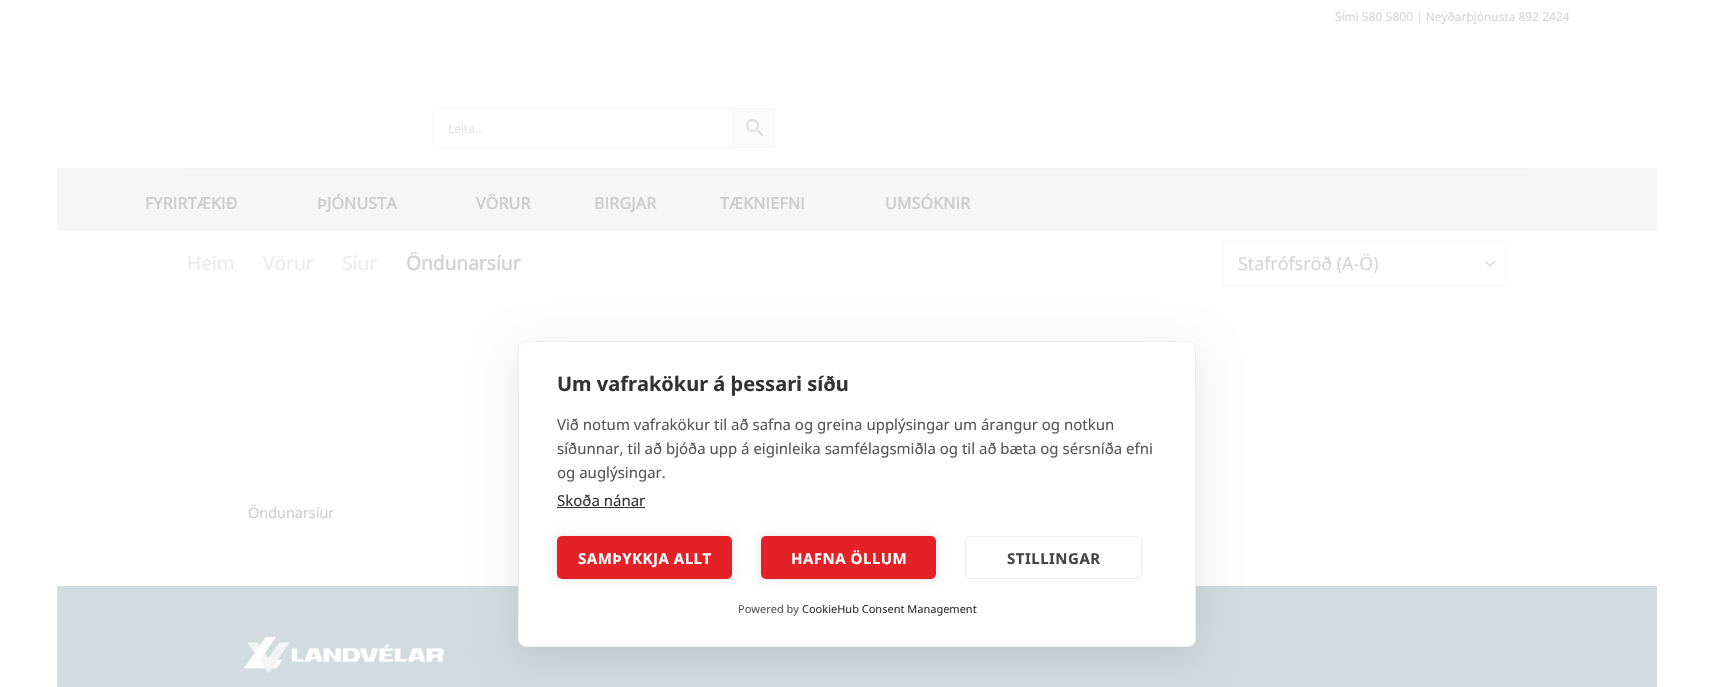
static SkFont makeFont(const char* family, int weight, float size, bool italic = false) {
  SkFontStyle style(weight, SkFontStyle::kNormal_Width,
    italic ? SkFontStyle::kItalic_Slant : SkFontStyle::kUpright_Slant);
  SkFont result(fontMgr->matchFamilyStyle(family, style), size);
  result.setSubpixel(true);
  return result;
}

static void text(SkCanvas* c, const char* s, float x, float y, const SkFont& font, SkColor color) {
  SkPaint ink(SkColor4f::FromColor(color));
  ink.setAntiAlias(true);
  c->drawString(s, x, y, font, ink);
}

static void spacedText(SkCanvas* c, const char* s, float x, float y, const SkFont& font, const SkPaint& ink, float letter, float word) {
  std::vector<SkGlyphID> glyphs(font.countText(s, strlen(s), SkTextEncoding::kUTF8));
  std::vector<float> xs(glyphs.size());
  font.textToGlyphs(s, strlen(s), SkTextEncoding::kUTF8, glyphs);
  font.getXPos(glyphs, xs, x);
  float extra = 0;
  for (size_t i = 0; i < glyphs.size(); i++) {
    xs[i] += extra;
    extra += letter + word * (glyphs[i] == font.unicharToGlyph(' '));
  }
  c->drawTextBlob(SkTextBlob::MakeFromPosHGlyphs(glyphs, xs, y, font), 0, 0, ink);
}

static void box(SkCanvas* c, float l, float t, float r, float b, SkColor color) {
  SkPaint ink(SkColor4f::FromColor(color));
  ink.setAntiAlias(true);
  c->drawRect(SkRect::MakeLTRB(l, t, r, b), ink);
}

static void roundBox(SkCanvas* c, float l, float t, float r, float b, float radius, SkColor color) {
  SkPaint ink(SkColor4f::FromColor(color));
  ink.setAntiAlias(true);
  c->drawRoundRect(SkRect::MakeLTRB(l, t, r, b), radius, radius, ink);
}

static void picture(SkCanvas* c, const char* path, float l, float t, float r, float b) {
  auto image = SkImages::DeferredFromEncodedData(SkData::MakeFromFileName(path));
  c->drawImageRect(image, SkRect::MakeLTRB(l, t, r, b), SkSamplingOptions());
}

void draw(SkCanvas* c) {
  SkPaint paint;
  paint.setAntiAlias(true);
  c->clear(0xffffffff);
  SkFont face1 = makeFont("Open Sans", 400, 12);
  text(c, "Sími 580 5800 | Neyðarþjónusta 892 2424", 1335, 21, face1, 0xffd3d3d3);
  paint.setColor(0xfffbfbfb);
  c->drawRect(SkRect::MakeLTRB(733.5f, 108.5f, 774.5f, 147.5f), paint);
  paint.setStyle(SkPaint::kStroke_Style);
  paint.setStrokeWidth(1);
  paint.setColor(0xfff7f7f7);
  c->drawRect(SkRect::MakeLTRB(733.5f, 108.5f, 774.5f, 147.5f), paint);
  c->drawRect(SkRect::MakeLTRB(432.5f, 108.5f, 733.5f, 147.5f), paint);
  text(c, "Leita..", 448, 133, face1, 0xffe3e3e3);
  picture(c, "img_01.png", 746, 119, 764, 137);
  box(c, 57, 168, 1657, 231, 0xfff6f6f6);
  box(c, 187, 168, 1527, 169, 0xfff2f2f2);
  SkFont face2 = makeFont("Open Sans", 700, 16);
  paint.setStyle(SkPaint::kFill_Style);
  paint.setColor(0xffcccccc);
  spacedText(c, "FYRIRTÆKIÐ", 145, 209, face2, paint, 0.25f, 0);
  spacedText(c, "ÞJÓNUSTA", 317, 209, face2, paint, 0.25f, 0);
  spacedText(c, "VÖRUR", 476, 209, face2, paint, 0.25f, 0);
  spacedText(c, "BIRGJAR", 594, 209, face2, paint, 0.25f, 0);
  spacedText(c, "TÆKNIEFNI", 720, 209, face2, paint, 0.25f, 0);
  spacedText(c, "UMSÓKNIR", 885, 209, face2, paint, 0.25f, 0);
  SkFont face3 = makeFont("Open Sans", 400, 19.25f);
  text(c, "Heim", 187, 270, face3, 0xffeaeaea);
  text(c, "Vörur", 263, 270, face3, 0xffeaeaea);
  text(c, "Síur", 342, 270, face3, 0xffeaeaea);
  SkFont face4 = makeFont("Open Sans", 700, 19.25f);
  text(c, "Öndunarsíur", 406, 270, face4, 0xffd3d3d3);
  paint.setStyle(SkPaint::kStroke_Style);
  paint.setStrokeWidth(1.3f);
  paint.setStrokeCap(SkPaint::kRound_Cap);
  paint.setStrokeJoin(SkPaint::kRound_Join);
  paint.setColor(0xffd6d6d6);
  c->drawPath(SkPathBuilder().moveTo(1486, 262).lineTo(1490, 266).lineTo(1494, 262).detach(), paint);
  paint.setStrokeWidth(1);
  paint.setStrokeCap(SkPaint::kButt_Cap);
  paint.setStrokeJoin(SkPaint::kMiter_Join);
  paint.setColor(0xfff8f8f8);
  c->drawRect(SkRect::MakeLTRB(1223.5f, 241.5f, 1506.5f, 285.5f), paint);
  SkFont face5 = makeFont("Open Sans", 400, 18);
  text(c, "Stafrófsröð (A-Ö)", 1238, 270, face5, 0xffd3d3d3);
  SkFont face6 = makeFont("Open Sans", 400, 14.5f);
  text(c, "Öndunarsíur", 248, 518, face6, 0xffcccccc);
  box(c, 57, 587, 1657, 687, 0xffd2dbde);
  box(c, 57, 586, 1657, 587, 0xffd2dadd);
  picture(c, "img_02.png", 244, 637, 444, 673);
  paint.setStyle(SkPaint::kFill_Style);
  paint.setColor(0x1a000000);
  paint.setMaskFilter(SkMaskFilter::MakeBlur(kNormal_SkBlurStyle, 20));
  c->drawRoundRect(SkRect::MakeLTRB(518, 351, 1196, 657), 8, 8, paint);
  paint.setMaskFilter(nullptr);
  paint.setColor(0xffffffff);
  c->drawRoundRect(SkRect::MakeLTRB(518.5f, 341.5f, 1195.5f, 646.5f), 7.5f, 7.5f, paint);
  paint.setStyle(SkPaint::kStroke_Style);
  paint.setColor(0xffeeeeee);
  c->drawRoundRect(SkRect::MakeLTRB(518.5f, 341.5f, 1195.5f, 646.5f), 7.5f, 7.5f, paint);
  SkFont face7 = makeFont("Noto Sans", 700, 20);
  text(c, "Um vafrakökur á þessari síðu", 557, 391, face7, 0xff333333);
  SkFont face8 = makeFont("Noto Sans", 400, 15);
  text(c, "Við notum vafrakökur til að safna og greina upplýsingar um árangur og notkun", 557, 430, face8, 0xff555555);
  text(c, "síðunnar, til að bjóða upp á eiginleika samfélagsmiðla og til að bæta og sérsníða efni", 557, 454, face8, 0xff555555);
  text(c, "og auglýsingar.", 557, 478, face8, 0xff555555);
  text(c, "Skoða nánar", 557, 506, face8, 0xff333333);
  box(c, 557, 507, 645, 508, 0xff333333);
  paint.setStyle(SkPaint::kFill_Style);
  paint.setColor(0x1f000000);
  paint.setMaskFilter(SkMaskFilter::MakeBlur(kNormal_SkBlurStyle, 5));
  c->drawRoundRect(SkRect::MakeLTRB(557, 536, 732, 579), 5, 5, paint);
  paint.setMaskFilter(nullptr);
  roundBox(c, 557, 536, 732, 579, 5, 0xffe42127);
  SkFont face9 = makeFont("Noto Sans", 700, 15);
  paint.setColor(0xffffffff);
  spacedText(c, "SAMÞYKKJA ALLT", 578, 564, face9, paint, 0.5f, 0);
  paint.setColor(0x1f000000);
  paint.setMaskFilter(SkMaskFilter::MakeBlur(kNormal_SkBlurStyle, 5));
  c->drawRoundRect(SkRect::MakeLTRB(761, 536, 936, 579), 5, 5, paint);
  paint.setMaskFilter(nullptr);
  roundBox(c, 761, 536, 936, 579, 5, 0xffe42127);
  paint.setColor(0xffffffff);
  spacedText(c, "HAFNA ÖLLUM", 791, 564, face9, paint, 0.5f, 0);
  paint.setStyle(SkPaint::kStroke_Style);
  paint.setColor(0xffeeeeee);
  c->drawRoundRect(SkRect::MakeLTRB(965.5f, 536.5f, 1141.5f, 578.5f), 4.5f, 4.5f, paint);
  paint.setStyle(SkPaint::kFill_Style);
  paint.setColor(0xff444444);
  spacedText(c, "STILLINGAR", 1007, 564, face9, paint, 0.5f, 0);
  SkFont face10 = makeFont("Noto Sans", 400, 11);
  text(c, "Powered by", 738, 613, face10, 0xff555555);
  text(c, "CookieHub Consent Management", 802, 613, face10, 0xff333333);
}
